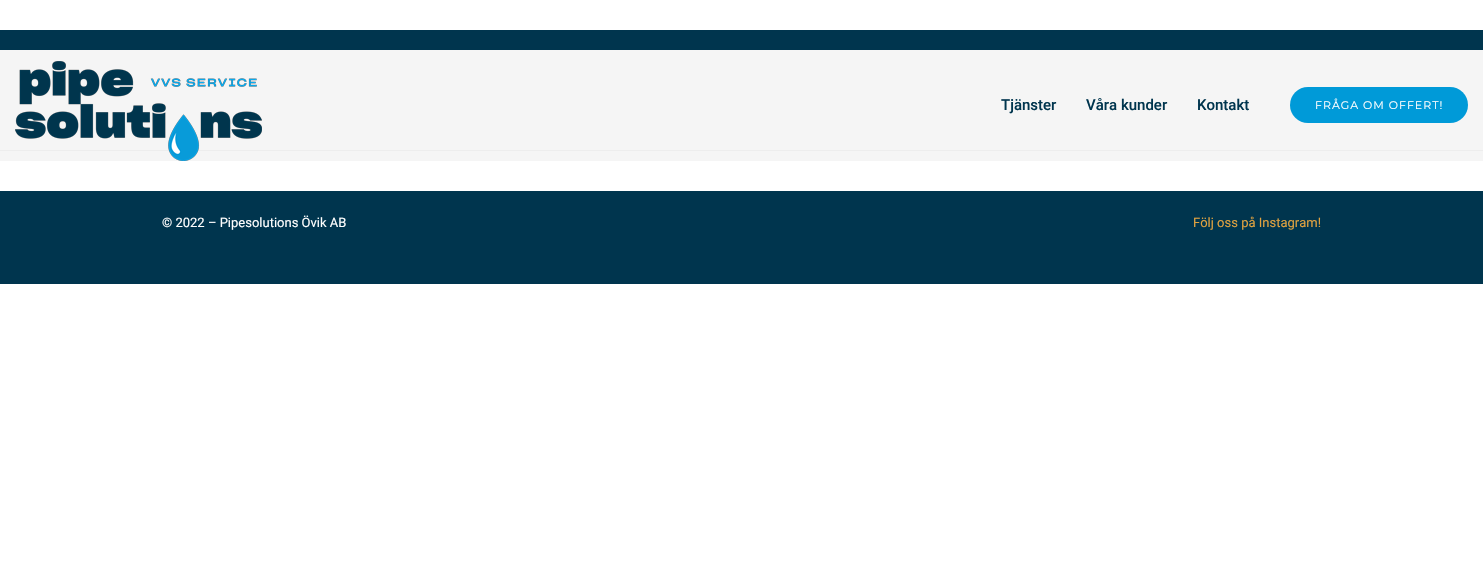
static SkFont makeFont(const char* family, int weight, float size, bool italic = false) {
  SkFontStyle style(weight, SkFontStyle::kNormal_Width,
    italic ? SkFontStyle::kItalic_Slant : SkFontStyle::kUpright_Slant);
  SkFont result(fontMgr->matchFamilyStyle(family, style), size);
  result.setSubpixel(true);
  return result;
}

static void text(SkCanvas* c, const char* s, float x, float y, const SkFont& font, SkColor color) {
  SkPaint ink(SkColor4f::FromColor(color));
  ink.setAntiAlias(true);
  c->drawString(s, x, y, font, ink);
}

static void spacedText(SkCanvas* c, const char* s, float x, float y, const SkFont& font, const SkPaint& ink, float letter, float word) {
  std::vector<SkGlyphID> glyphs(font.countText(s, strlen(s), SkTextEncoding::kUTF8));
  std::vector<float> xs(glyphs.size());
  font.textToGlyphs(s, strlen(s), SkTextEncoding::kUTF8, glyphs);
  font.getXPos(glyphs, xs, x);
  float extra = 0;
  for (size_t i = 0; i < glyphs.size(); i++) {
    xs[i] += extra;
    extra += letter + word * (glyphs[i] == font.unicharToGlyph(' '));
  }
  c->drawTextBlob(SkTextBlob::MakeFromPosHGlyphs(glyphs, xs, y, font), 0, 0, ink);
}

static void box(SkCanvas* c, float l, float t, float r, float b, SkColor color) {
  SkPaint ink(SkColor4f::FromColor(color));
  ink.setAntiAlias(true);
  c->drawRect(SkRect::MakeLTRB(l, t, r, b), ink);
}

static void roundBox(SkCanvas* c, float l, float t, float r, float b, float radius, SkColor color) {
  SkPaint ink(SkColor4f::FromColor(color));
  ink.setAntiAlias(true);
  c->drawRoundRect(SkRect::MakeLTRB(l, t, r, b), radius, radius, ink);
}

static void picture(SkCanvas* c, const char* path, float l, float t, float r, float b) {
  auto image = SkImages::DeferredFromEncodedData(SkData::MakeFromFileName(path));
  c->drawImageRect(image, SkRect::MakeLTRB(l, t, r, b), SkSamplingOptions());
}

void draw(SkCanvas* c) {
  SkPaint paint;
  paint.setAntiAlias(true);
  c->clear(0xffffffff);
  box(c, 0, 30, 1483, 50, 0xff00354e);
  box(c, 0, 50, 1483, 150, 0xfff5f5f5);
  box(c, 0, 150, 1483, 151, 0xffededed);
  box(c, 0, 151, 1483, 161, 0xfff5f5f5);
  picture(c, "img_01.png", 15, 61, 262, 161);
  SkFont face1 = makeFont("Roboto", 500, 15);
  text(c, "Tjänster", 1001, 110, face1, 0xff00354e);
  text(c, "Våra kunder", 1086, 110, face1, 0xff00354e);
  text(c, "Kontakt", 1197, 110, face1, 0xff00354e);
  roundBox(c, 1290, 87, 1468, 123, 18, 0xff009ad8);
  SkFont face2 = makeFont("Montserrat", 400, 11);
  paint.setColor(0xffffffff);
  spacedText(c, "FRÅGA OM OFFERT!", 1315, 109, face2, paint, 1, 0);
  box(c, 0, 191, 1483, 284, 0xff00354e);
  SkFont face3 = makeFont("Roboto", 400, 13);
  text(c, "© 2022 – Pipesolutions Övik AB", 162, 227, face3, 0xffffffff);
  text(c, "Följ oss på Instagram!", 1193, 227, face3, 0xffe0a240);
}
